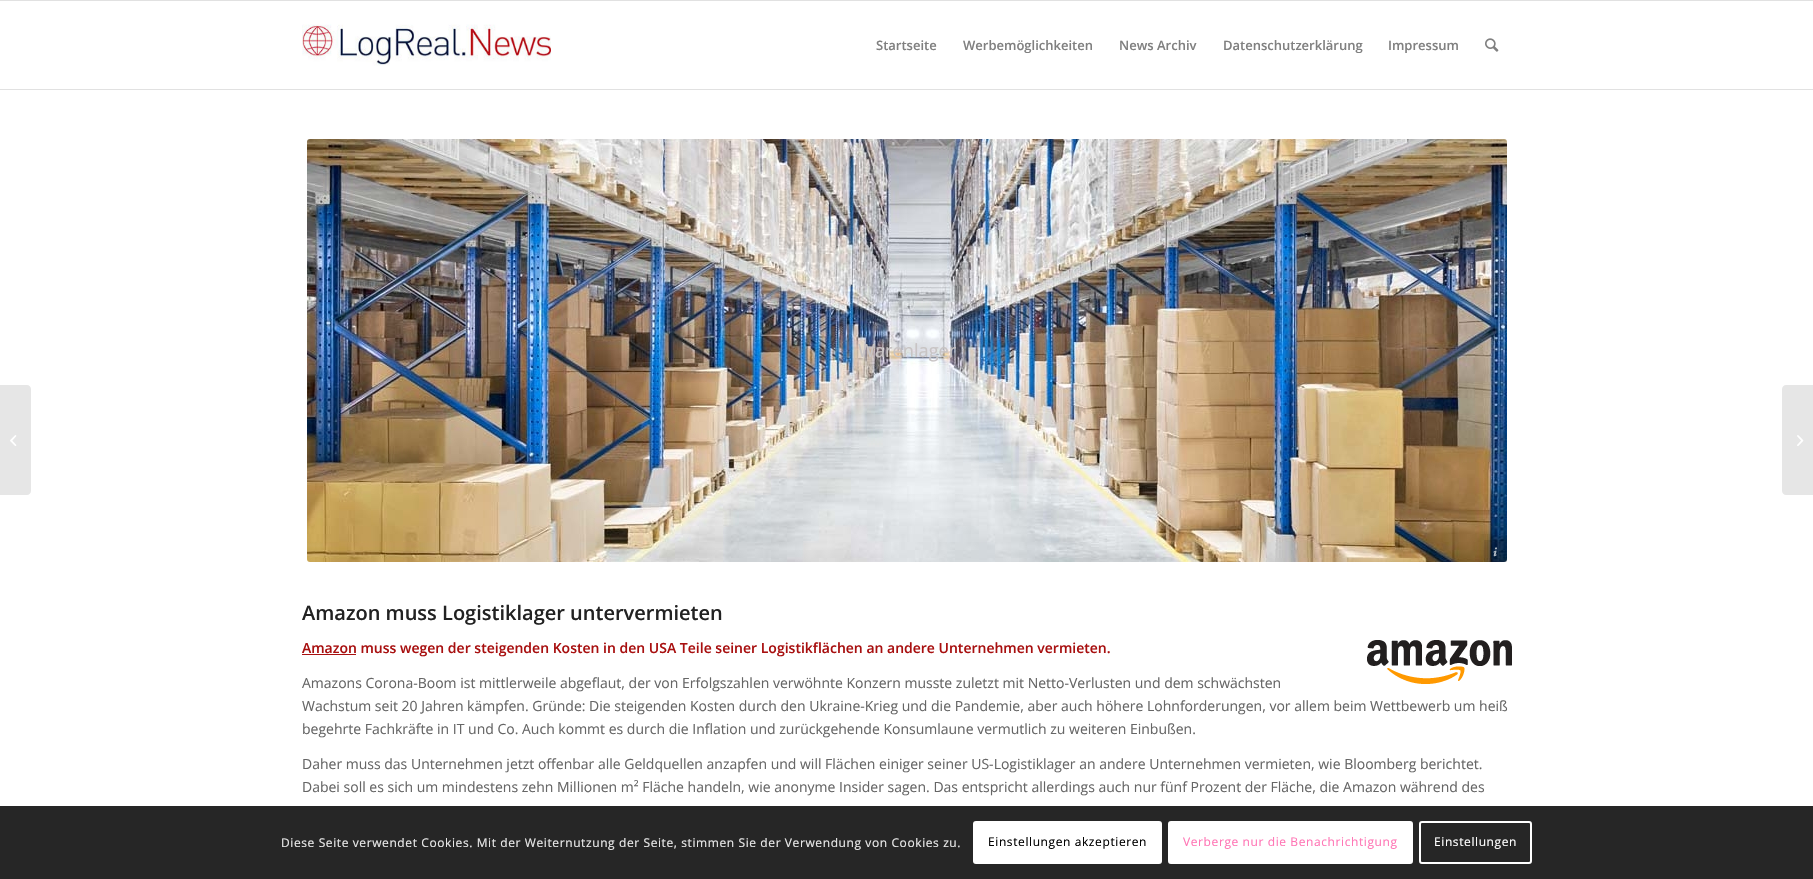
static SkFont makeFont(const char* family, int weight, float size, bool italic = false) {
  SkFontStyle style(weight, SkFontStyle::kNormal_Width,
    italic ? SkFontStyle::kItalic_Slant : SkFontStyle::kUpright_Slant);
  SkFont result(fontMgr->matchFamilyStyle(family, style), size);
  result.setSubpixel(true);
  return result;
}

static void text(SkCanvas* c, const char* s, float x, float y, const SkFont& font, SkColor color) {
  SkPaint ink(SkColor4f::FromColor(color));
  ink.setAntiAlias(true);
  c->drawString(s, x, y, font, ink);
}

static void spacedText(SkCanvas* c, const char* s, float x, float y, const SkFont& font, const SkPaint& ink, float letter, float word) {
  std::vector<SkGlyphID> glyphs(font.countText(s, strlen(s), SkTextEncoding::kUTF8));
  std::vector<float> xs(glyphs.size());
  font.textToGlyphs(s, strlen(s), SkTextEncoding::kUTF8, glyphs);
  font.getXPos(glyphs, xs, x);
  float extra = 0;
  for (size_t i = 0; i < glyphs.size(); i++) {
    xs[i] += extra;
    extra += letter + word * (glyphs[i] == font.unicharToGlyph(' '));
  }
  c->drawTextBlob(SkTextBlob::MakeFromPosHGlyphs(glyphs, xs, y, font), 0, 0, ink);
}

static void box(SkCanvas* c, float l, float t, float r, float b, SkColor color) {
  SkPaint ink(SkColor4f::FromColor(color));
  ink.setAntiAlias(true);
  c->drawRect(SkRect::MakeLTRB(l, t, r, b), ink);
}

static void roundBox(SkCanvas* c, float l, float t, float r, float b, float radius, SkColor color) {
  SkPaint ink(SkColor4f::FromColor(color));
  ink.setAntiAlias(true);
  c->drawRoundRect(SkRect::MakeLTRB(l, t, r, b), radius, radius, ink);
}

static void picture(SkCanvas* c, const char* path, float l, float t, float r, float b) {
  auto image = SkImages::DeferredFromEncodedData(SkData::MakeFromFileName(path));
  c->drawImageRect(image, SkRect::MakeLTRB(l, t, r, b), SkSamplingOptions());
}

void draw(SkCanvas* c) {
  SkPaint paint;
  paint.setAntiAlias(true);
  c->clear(0xffffffff);
  box(c, 0, 0, 1813, 1, 0xffe1e1e1);
  box(c, 0, 89, 1813, 90, 0xffe1e1e1);
  picture(c, "img_01.png", 302, 24, 551, 66);
  SkFont face1 = makeFont("Open Sans", 600, 13);
  text(c, "Startseite", 876, 50, face1, 0xff808080);
  text(c, "Werbemöglichkeiten", 963, 50, face1, 0xff808080);
  text(c, "News Archiv", 1119, 50, face1, 0xff808080);
  text(c, "Datenschutzerklärung", 1223, 50, face1, 0xff808080);
  text(c, "Impressum", 1388, 50, face1, 0xff808080);
  picture(c, "img_02.png", 1485, 38, 1499, 52);
  paint.setColor(0xffe6e6e6);
  c->drawPath(SkPathBuilder().moveTo(0, 385).lineTo(27, 385).cubicTo(29, 385, 31, 387, 31, 389).lineTo(31, 491).cubicTo(31, 493, 29, 495, 27, 495).lineTo(0, 495).close().detach(), paint);
  picture(c, "img_03.png", 10, 435, 17, 446);
  picture(c, "img_04.png", 307, 139, 1507, 562);
  SkFont face2 = makeFont("Open Sans", 400, 18.25f);
  text(c, "Warenlager", 858, 357, face2, 0xffc8c4c4);
  box(c, 1484, 540, 1507, 562, 0x1a000000);
  picture(c, "img_05.png", 1493, 547, 1497, 557);
  SkFont face3 = makeFont("Open Sans", 600, 20);
  text(c, "Amazon muss Logistiklager untervermieten", 302, 620, face3, 0xff222222);
  box(c, 302, 654, 356, 655, 0xffa81010);
  SkFont face4 = makeFont("Open Sans", 600, 14);
  text(c, "Amazon muss wegen der steigenden Kosten in den USA Teile seiner Logistikflächen an andere Unternehmen vermieten.", 302, 653, face4, 0xffa81010);
  picture(c, "img_06.png", 1367, 640, 1512, 684);
  SkFont face5 = makeFont("Open Sans", 400, 14);
  text(c, "Amazons Corona-Boom ist mittlerweile abgeflaut, der von Erfolgszahlen verwöhnte Konzern musste zuletzt mit Netto-Verlusten und dem schwächsten", 302, 688, face5, 0xff666666);
  text(c, "Wachstum seit 20 Jahren kämpfen. Gründe: Die steigenden Kosten durch den Ukraine-Krieg und die Pandemie, aber auch höhere Lohnforderungen, vor allem beim Wettbewerb um heiß", 302, 711, face5, 0xff666666);
  text(c, "begehrte Fachkräfte in IT und Co. Auch kommt es durch die Inflation und zurückgehende Konsumlaune vermutlich zu weiteren Einbußen.", 302, 734, face5, 0xff666666);
  text(c, "Daher muss das Unternehmen jetzt offenbar alle Geldquellen anzapfen und will Flächen einiger seiner US-Logistiklager an andere Unternehmen vermieten, wie Bloomberg berichtet.", 302, 769, face5, 0xff666666);
  text(c, "Dabei soll es sich um mindestens zehn Millionen m² Fläche handeln, wie anonyme Insider sagen. Das entspricht allerdings auch nur fünf Prozent der Fläche, die Amazon während des", 302, 792, face5, 0xff666666);
  c->drawPath(SkPathBuilder().moveTo(1786, 385).lineTo(1813, 385).lineTo(1813, 495).lineTo(1786, 495).cubicTo(1784, 495, 1782, 493, 1782, 491).lineTo(1782, 389).cubicTo(1782, 387, 1784, 385, 1786, 385).close().detach(), paint);
  picture(c, "img_07.png", 1797, 435, 1804, 446);
  box(c, 0, 806, 1813, 879, 0xd9000000);
  SkFont face6 = makeFont("Open Sans", 400, 12);
  paint.setColor(0xffe9e9e9);
  spacedText(c, "Diese Seite verwendet Cookies. Mit der Weiternutzung der Seite, stimmen Sie der Verwendung von Cookies zu.", 281, 847, face6, paint, 0.6f, 0);
  roundBox(c, 973, 821, 1162, 864, 3, 0xffffffff);
  paint.setColor(0xff000000);
  spacedText(c, "Einstellungen akzeptieren", 988, 846, face6, paint, 0.6f, 0);
  paint.setColor(0xffffffff);
  c->drawRoundRect(SkRect::MakeLTRB(1169, 822, 1412, 863), 2, 2, paint);
  paint.setStyle(SkPaint::kStroke_Style);
  paint.setStrokeWidth(2);
  c->drawRoundRect(SkRect::MakeLTRB(1169, 822, 1412, 863), 2, 2, paint);
  paint.setStyle(SkPaint::kFill_Style);
  paint.setColor(0xffff75b5);
  spacedText(c, "Verberge nur die Benachrichtigung", 1183, 846, face6, paint, 0.6f, 0);
  paint.setStyle(SkPaint::kStroke_Style);
  paint.setColor(0xffffffff);
  c->drawRoundRect(SkRect::MakeLTRB(1420, 822, 1531, 863), 2, 2, paint);
  paint.setStyle(SkPaint::kFill_Style);
  spacedText(c, "Einstellungen", 1434, 846, face6, paint, 0.6f, 0);
}
